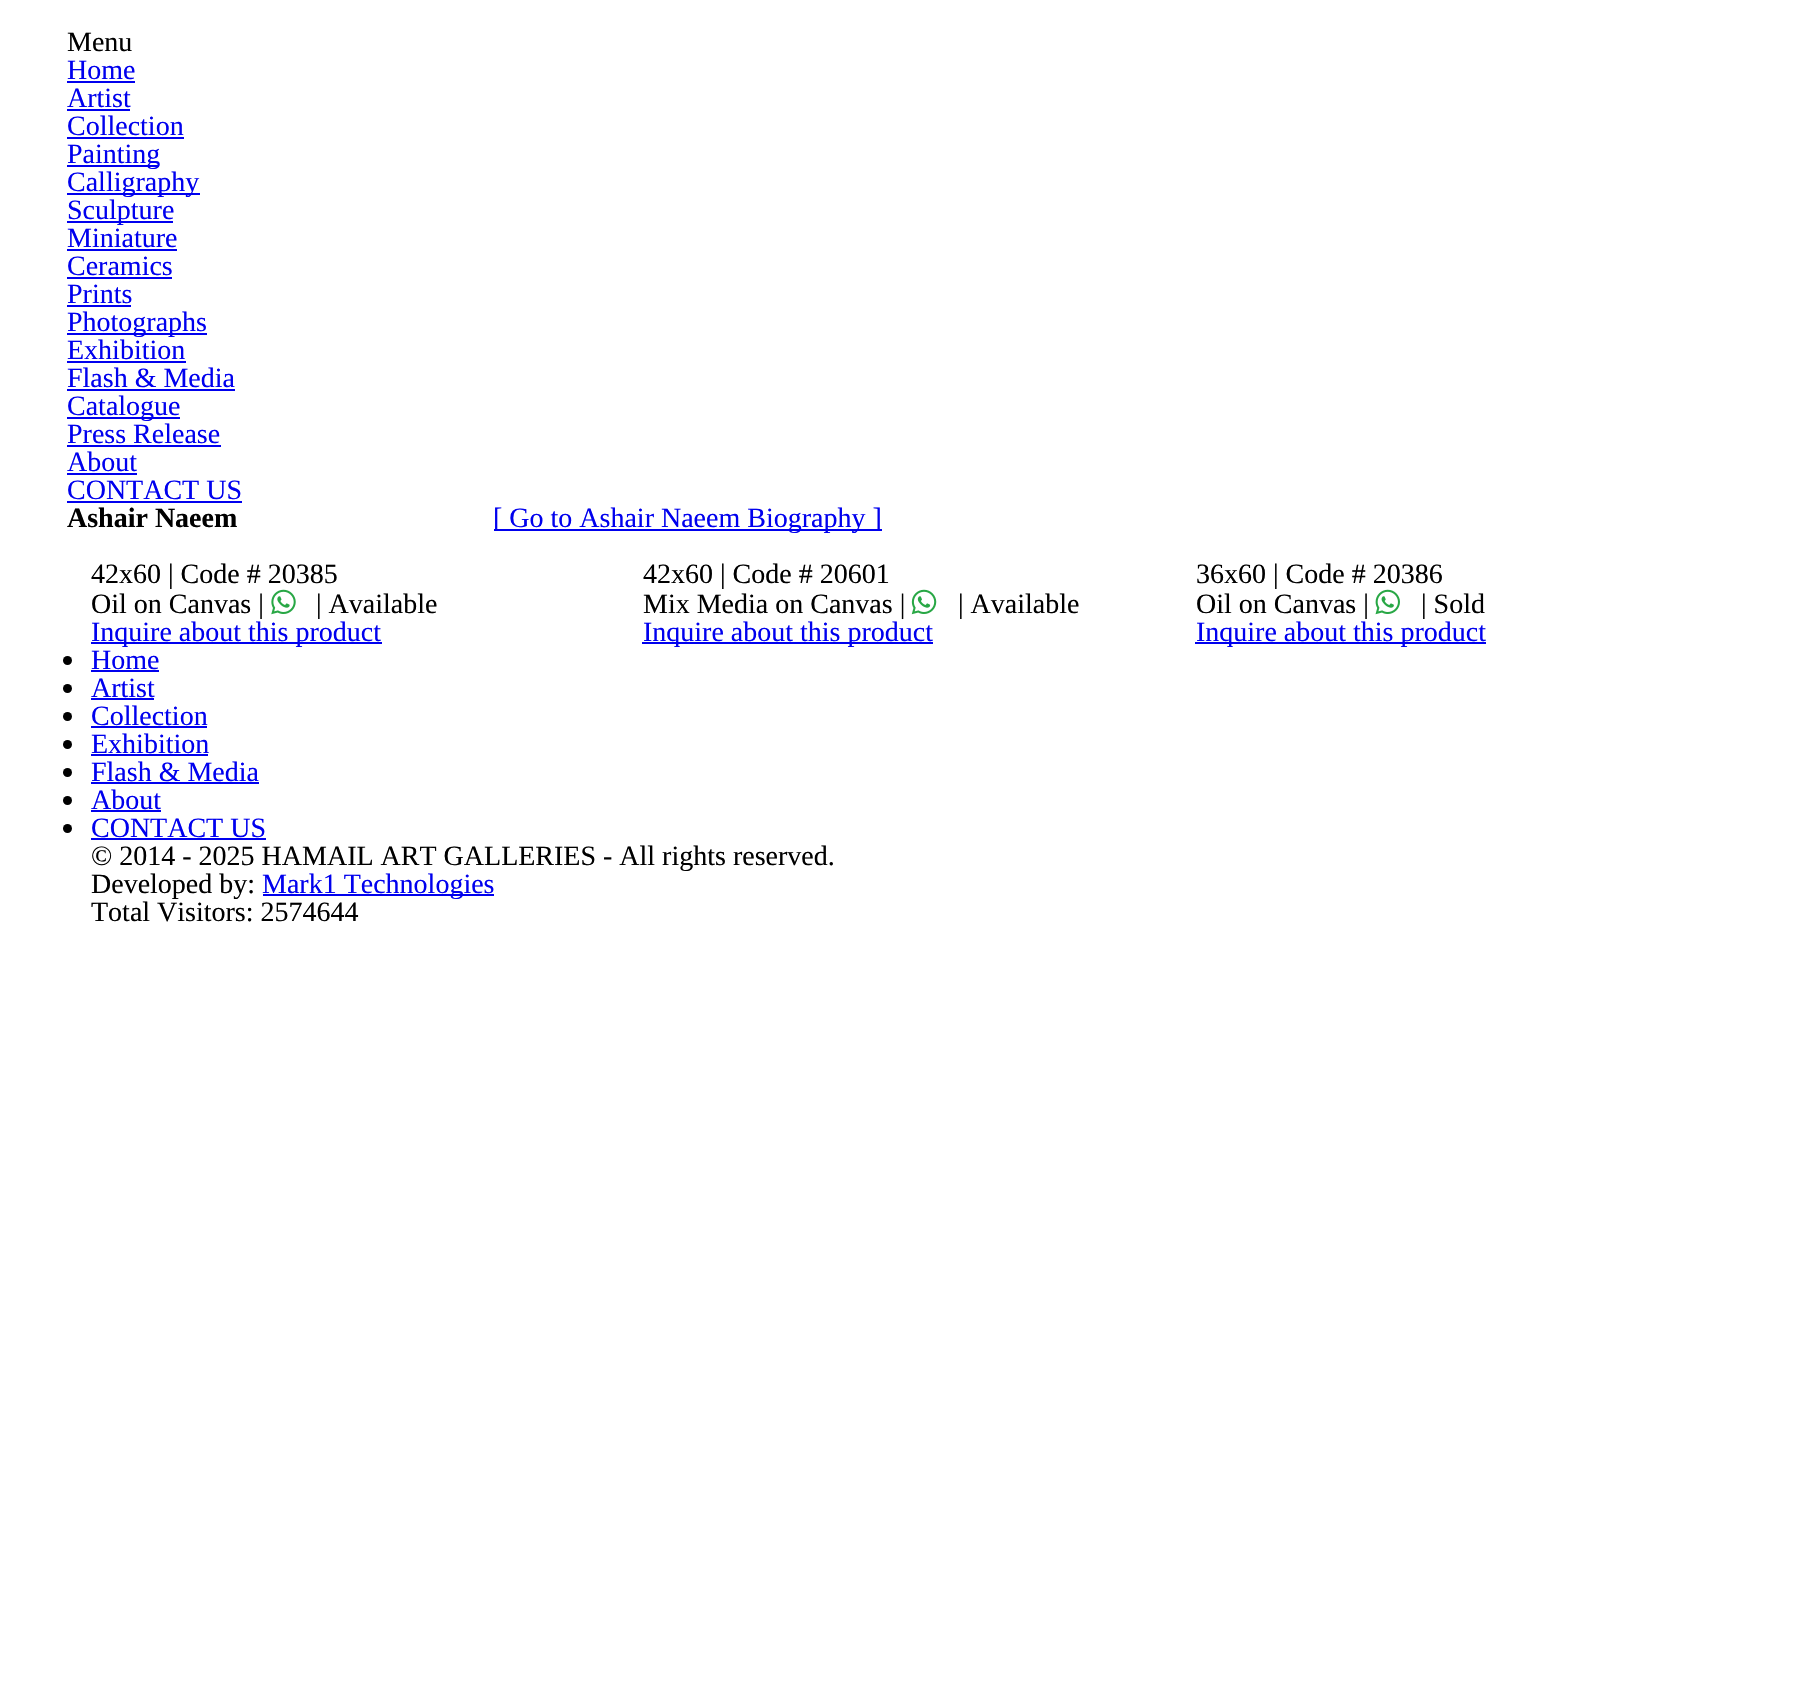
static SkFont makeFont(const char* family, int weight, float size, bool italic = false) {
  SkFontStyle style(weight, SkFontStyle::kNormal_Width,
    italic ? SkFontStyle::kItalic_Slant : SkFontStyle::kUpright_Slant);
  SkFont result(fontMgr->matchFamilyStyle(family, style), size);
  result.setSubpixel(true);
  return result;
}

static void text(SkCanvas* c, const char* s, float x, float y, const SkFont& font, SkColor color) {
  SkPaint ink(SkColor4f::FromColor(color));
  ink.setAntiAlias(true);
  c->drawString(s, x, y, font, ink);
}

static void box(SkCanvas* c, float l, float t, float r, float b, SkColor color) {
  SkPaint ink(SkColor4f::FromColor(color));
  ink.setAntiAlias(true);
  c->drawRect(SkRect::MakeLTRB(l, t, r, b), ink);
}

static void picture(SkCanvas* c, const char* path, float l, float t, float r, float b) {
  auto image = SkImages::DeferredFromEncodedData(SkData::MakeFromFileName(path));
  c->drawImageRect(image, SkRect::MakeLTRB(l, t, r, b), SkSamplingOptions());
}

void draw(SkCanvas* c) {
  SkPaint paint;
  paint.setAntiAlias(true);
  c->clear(0xffffffff);
  SkFont face1 = makeFont("Liberation Serif", 400, 28);
  text(c, "Menu", 67, 51, face1, 0xff000000);
  text(c, "Home", 67, 79, face1, 0xff0000ee);
  box(c, 67, 81, 135, 83, 0xff0000ee);
  text(c, "Artist", 67, 107, face1, 0xff0000ee);
  box(c, 67, 109, 130, 111, 0xff0000ee);
  text(c, "Collection", 67, 135, face1, 0xff0000ee);
  box(c, 67, 137, 184, 139, 0xff0000ee);
  box(c, 67, 165, 159, 167, 0xff0000ee);
  text(c, "Painting", 67, 163, face1, 0xff0000ee);
  box(c, 67, 193, 200, 195, 0xff0000ee);
  text(c, "Calligraphy", 67, 191, face1, 0xff0000ee);
  box(c, 67, 221, 173, 223, 0xff0000ee);
  text(c, "Sculpture", 67, 219, face1, 0xff0000ee);
  text(c, "Miniature", 67, 247, face1, 0xff0000ee);
  box(c, 67, 249, 177, 251, 0xff0000ee);
  text(c, "Ceramics", 67, 275, face1, 0xff0000ee);
  box(c, 67, 277, 172, 279, 0xff0000ee);
  text(c, "Prints", 67, 303, face1, 0xff0000ee);
  box(c, 67, 305, 131, 307, 0xff0000ee);
  box(c, 67, 333, 207, 335, 0xff0000ee);
  text(c, "Photographs", 67, 331, face1, 0xff0000ee);
  text(c, "Exhibition", 67, 359, face1, 0xff0000ee);
  box(c, 67, 361, 186, 363, 0xff0000ee);
  text(c, "Flash & Media", 67, 387, face1, 0xff0000ee);
  box(c, 67, 389, 235, 391, 0xff0000ee);
  box(c, 67, 417, 180, 419, 0xff0000ee);
  text(c, "Catalogue", 67, 415, face1, 0xff0000ee);
  text(c, "Press Release", 67, 443, face1, 0xff0000ee);
  box(c, 67, 445, 221, 447, 0xff0000ee);
  text(c, "About", 67, 471, face1, 0xff0000ee);
  box(c, 67, 473, 137, 475, 0xff0000ee);
  text(c, "CONTACT US", 67, 499, face1, 0xff0000ee);
  box(c, 67, 501, 242, 503, 0xff0000ee);
  SkFont face2 = makeFont("Liberation Serif", 700, 28);
  text(c, "Ashair Naeem", 67, 527, face2, 0xff000000);
  box(c, 494, 529, 882, 531, 0xff0000ee);
  text(c, "[ Go to Ashair Naeem Biography ]", 493, 527, face1, 0xff0000ee);
  text(c, "42x60 | Code # 20385", 91, 583, face1, 0xff000000);
  text(c, "Oil on Canvas |", 91, 613, face1, 0xff000000);
  picture(c, "img_01.png", 271, 589, 296, 615);
  text(c, "| Available", 316, 613, face1, 0xff000000);
  box(c, 91, 642, 382, 644, 0xff0000ee);
  text(c, "Inquire about this product", 91, 641, face1, 0xff0000ee);
  text(c, "42x60 | Code # 20601", 643, 583, face1, 0xff000000);
  text(c, "Mix Media on Canvas |", 643, 613, face1, 0xff000000);
  picture(c, "img_02.png", 911, 589, 937, 615);
  text(c, "| Available", 958, 613, face1, 0xff000000);
  box(c, 642, 642, 933, 644, 0xff0000ee);
  text(c, "Inquire about this product", 643, 641, face1, 0xff0000ee);
  text(c, "36x60 | Code # 20386", 1196, 583, face1, 0xff000000);
  text(c, "Oil on Canvas |", 1196, 613, face1, 0xff000000);
  picture(c, "img_03.png", 1375, 589, 1400, 615);
  text(c, "| Sold", 1421, 613, face1, 0xff000000);
  box(c, 1195, 642, 1486, 644, 0xff0000ee);
  text(c, "Inquire about this product", 1196, 641, face1, 0xff0000ee);
  paint.setColor(0xff000000);
  c->drawCircle(67.5f, 660.5f, 4.5f, paint);
  text(c, "Home", 91, 669, face1, 0xff0000ee);
  box(c, 91, 670, 159, 672, 0xff0000ee);
  c->drawCircle(67.5f, 688.5f, 4.5f, paint);
  text(c, "Artist", 91, 697, face1, 0xff0000ee);
  box(c, 91, 698, 154, 700, 0xff0000ee);
  c->drawCircle(67.5f, 716.5f, 4.5f, paint);
  text(c, "Collection", 91, 725, face1, 0xff0000ee);
  box(c, 91, 726, 207, 728, 0xff0000ee);
  c->drawCircle(67.5f, 744.5f, 4.5f, paint);
  text(c, "Exhibition", 91, 753, face1, 0xff0000ee);
  box(c, 91, 754, 208, 756, 0xff0000ee);
  c->drawCircle(67.5f, 772.5f, 4.5f, paint);
  text(c, "Flash & Media", 91, 781, face1, 0xff0000ee);
  box(c, 91, 782, 259, 784, 0xff0000ee);
  c->drawCircle(67.5f, 800.5f, 4.5f, paint);
  text(c, "About", 91, 809, face1, 0xff0000ee);
  box(c, 91, 810, 161, 812, 0xff0000ee);
  c->drawCircle(67.5f, 828.5f, 4.5f, paint);
  text(c, "CONTACT US", 91, 837, face1, 0xff0000ee);
  box(c, 91, 838, 266, 840, 0xff0000ee);
  text(c, "© 2014 - 2025 HAMAIL ART GALLERIES - All rights reserved.", 91, 865, face1, 0xff000000);
  text(c, "Developed by:", 91, 893, face1, 0xff000000);
  box(c, 263, 894, 494, 896, 0xff0000ee);
  text(c, "Mark1 Technologies", 262, 893, face1, 0xff0000ee);
  text(c, "Total Visitors: 2574644", 91, 921, face1, 0xff000000);
}
